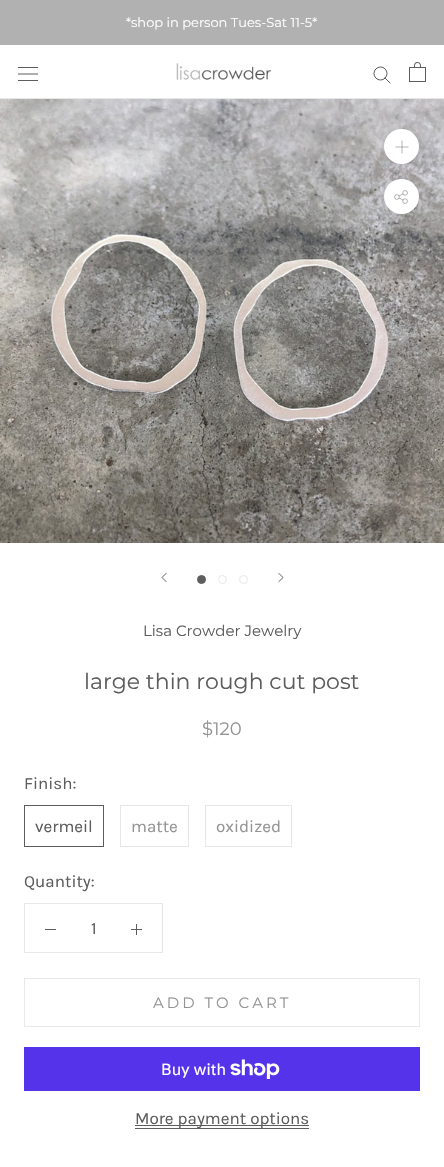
static SkFont makeFont(const char* family, int weight, float size, bool italic = false) {
  SkFontStyle style(weight, SkFontStyle::kNormal_Width,
    italic ? SkFontStyle::kItalic_Slant : SkFontStyle::kUpright_Slant);
  SkFont result(fontMgr->matchFamilyStyle(family, style), size);
  result.setSubpixel(true);
  return result;
}

static void text(SkCanvas* c, const char* s, float x, float y, const SkFont& font, SkColor color) {
  SkPaint ink(SkColor4f::FromColor(color));
  ink.setAntiAlias(true);
  c->drawString(s, x, y, font, ink);
}

static void spacedText(SkCanvas* c, const char* s, float x, float y, const SkFont& font, const SkPaint& ink, float letter, float word) {
  std::vector<SkGlyphID> glyphs(font.countText(s, strlen(s), SkTextEncoding::kUTF8));
  std::vector<float> xs(glyphs.size());
  font.textToGlyphs(s, strlen(s), SkTextEncoding::kUTF8, glyphs);
  font.getXPos(glyphs, xs, x);
  float extra = 0;
  for (size_t i = 0; i < glyphs.size(); i++) {
    xs[i] += extra;
    extra += letter + word * (glyphs[i] == font.unicharToGlyph(' '));
  }
  c->drawTextBlob(SkTextBlob::MakeFromPosHGlyphs(glyphs, xs, y, font), 0, 0, ink);
}

static void box(SkCanvas* c, float l, float t, float r, float b, SkColor color) {
  SkPaint ink(SkColor4f::FromColor(color));
  ink.setAntiAlias(true);
  c->drawRect(SkRect::MakeLTRB(l, t, r, b), ink);
}

static void picture(SkCanvas* c, const char* path, float l, float t, float r, float b) {
  auto image = SkImages::DeferredFromEncodedData(SkData::MakeFromFileName(path));
  c->drawImageRect(image, SkRect::MakeLTRB(l, t, r, b), SkSamplingOptions());
}

void draw(SkCanvas* c) {
  SkPaint paint;
  paint.setAntiAlias(true);
  c->clear(0xffffffff);
  box(c, 0, 0, 444, 45, 0xffb1b1b1);
  SkFont face1 = makeFont("Montserrat", 400, 13);
  text(c, "*shop in person Tues-Sat 11-5*", 126, 27, face1, 0xffffffff);
  box(c, 0, 98, 444, 99, 0xffe7e7e7);
  picture(c, "img_01.png", 18, 67, 38, 81);
  picture(c, "img_02.png", 176, 63, 272, 80);
  paint.setStyle(SkPaint::kStroke_Style);
  paint.setStrokeWidth(1);
  paint.setStrokeCap(SkPaint::kSquare_Cap);
  paint.setColor(0xff5d5d5d);
  c->drawPath(SkPathBuilder().moveTo(390, 83).lineTo(385, 78).detach(), paint);
  paint.setStrokeCap(SkPaint::kButt_Cap);
  c->drawCircle(380.5f, 73.5f, 6.5f, paint);
  picture(c, "img_03.png", 409, 62, 426, 82);
  picture(c, "img_04.png", 0, 99, 444, 543);
  paint.setStyle(SkPaint::kFill_Style);
  paint.setColor(0x26363636);
  paint.setMaskFilter(SkMaskFilter::MakeBlur(kNormal_SkBlurStyle, 2.5f));
  c->drawRoundRect(SkRect::MakeLTRB(384, 130, 419, 165), 17.5f, 17.5f, paint);
  paint.setMaskFilter(nullptr);
  paint.setColor(0xffffffff);
  c->drawCircle(401.5f, 146.5f, 17.5f, paint);
  paint.setStyle(SkPaint::kStroke_Style);
  paint.setStrokeWidth(0.9f);
  paint.setStrokeCap(SkPaint::kSquare_Cap);
  paint.setColor(0xffaeaeae);
  c->drawPath(SkPathBuilder().moveTo(402, 141).lineTo(402, 153).detach(), paint);
  paint.setColor(0x805c5c5c);
  c->drawPath(SkPathBuilder().moveTo(396, 147).lineTo(408, 147).detach(), paint);
  paint.setStyle(SkPaint::kFill_Style);
  paint.setColor(0x26363636);
  paint.setMaskFilter(SkMaskFilter::MakeBlur(kNormal_SkBlurStyle, 2.5f));
  c->drawRoundRect(SkRect::MakeLTRB(384, 180, 419, 215), 17.5f, 17.5f, paint);
  paint.setMaskFilter(nullptr);
  paint.setColor(0xffffffff);
  c->drawCircle(401.5f, 196.5f, 17.5f, paint);
  picture(c, "img_05.png", 394, 190, 408, 204);
  paint.setStyle(SkPaint::kStroke_Style);
  paint.setStrokeWidth(1);
  paint.setColor(0xff5d5d5d);
  c->drawPath(SkPathBuilder().moveTo(166, 581.5f).lineTo(162, 577.5f).lineTo(166, 573.5f).detach(), paint);
  paint.setStyle(SkPaint::kFill_Style);
  c->drawCircle(201.5f, 579.5f, 4, paint);
  paint.setStyle(SkPaint::kStroke_Style);
  paint.setStrokeCap(SkPaint::kButt_Cap);
  c->drawCircle(201.5f, 579.5f, 4, paint);
  paint.setColor(0xffe7e7e7);
  c->drawCircle(222.5f, 579.5f, 4, paint);
  c->drawCircle(243.5f, 579.5f, 4, paint);
  paint.setStrokeCap(SkPaint::kSquare_Cap);
  paint.setColor(0xff5d5d5d);
  c->drawPath(SkPathBuilder().moveTo(279, 581.5f).lineTo(283, 577.5f).lineTo(279, 573.5f).detach(), paint);
  SkFont face2 = makeFont("Montserrat", 400, 15);
  text(c, "Lisa Crowder Jewelry", 143, 636, face2, 0xff5c5c5c);
  SkFont face3 = makeFont("Montserrat", 400, 22);
  text(c, "large thin rough cut post", 84, 689, face3, 0xff5c5c5c);
  SkFont face4 = makeFont("Montserrat", 400, 18);
  text(c, "$120", 202, 735, face4, 0xff939393);
  SkFont face5 = makeFont("Karla", 400, 17);
  text(c, "Finish:", 24, 789, face5, 0xff5c5c5c);
  paint.setStrokeCap(SkPaint::kButt_Cap);
  c->drawRect(SkRect::MakeLTRB(24.5f, 805.5f, 103.5f, 846.5f), paint);
  text(c, "vermeil", 35, 832, face5, 0xff5c5c5c);
  paint.setColor(0xffe7e7e7);
  c->drawRect(SkRect::MakeLTRB(120.5f, 805.5f, 188.5f, 846.5f), paint);
  text(c, "matte", 131, 832, face5, 0xff939393);
  c->drawRect(SkRect::MakeLTRB(205.5f, 805.5f, 291.5f, 846.5f), paint);
  text(c, "oxidized", 216, 832, face5, 0xff939393);
  text(c, "Quantity:", 24, 887, face5, 0xff5c5c5c);
  c->drawRect(SkRect::MakeLTRB(24.5f, 903.5f, 162.5f, 952.5f), paint);
  box(c, 45, 929, 56, 930, 0xff5d5d5d);
  text(c, "1", 91, 934, face5, 0xff5c5c5c);
  box(c, 136, 924, 137, 935, 0xff5d5d5d);
  box(c, 131, 929, 142, 930, 0xff5d5d5d);
  paint.setColor(0xffe9e9e9);
  c->drawRect(SkRect::MakeLTRB(24.5f, 978.5f, 419.5f, 1026.5f), paint);
  paint.setStyle(SkPaint::kFill_Style);
  paint.setColor(0xff939393);
  spacedText(c, "ADD TO CART", 153, 1008, face2, paint, 3, 0);
  box(c, 24, 1047, 420, 1091, 0xff5433eb);
  SkFont face6 = makeFont("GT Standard", 400, 16);
  text(c, "Buy with", 161, 1075, face6, 0xffffffff);
  picture(c, "img_06.png", 230, 1059, 280, 1079);
  box(c, 135, 1125, 309, 1126, 0xff5d5d5d);
  text(c, "More payment options", 135, 1124, face5, 0xff5c5c5c);
  box(c, 135, 1128, 309, 1129, 0xff5d5d5d);
}
